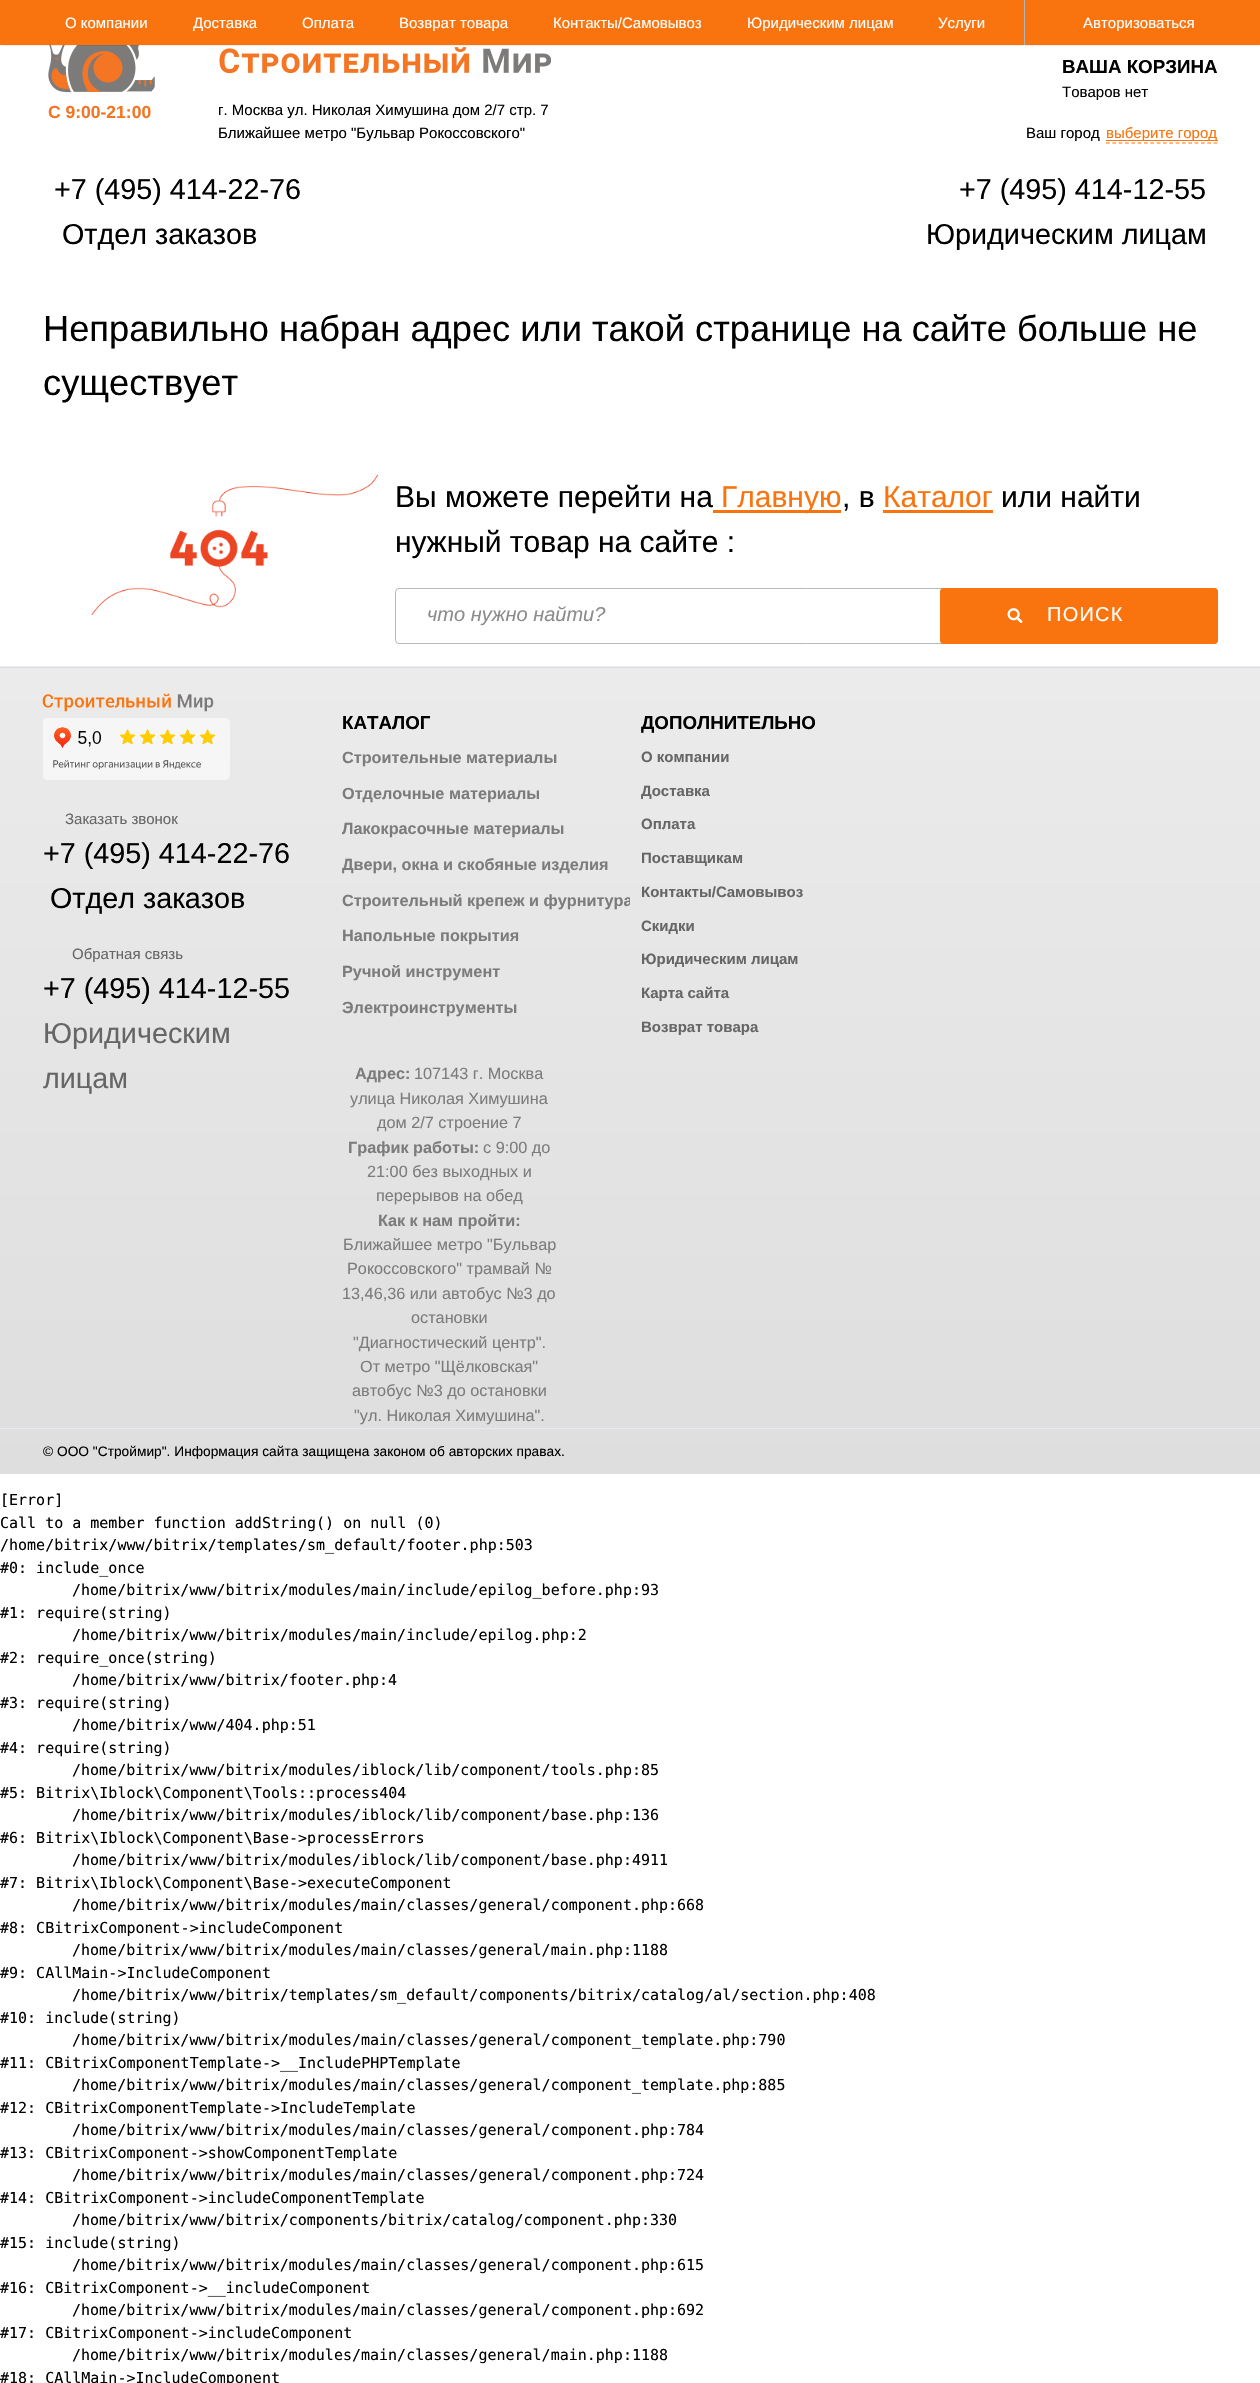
static SkFont makeFont(const char* family, int weight, float size, bool italic = false) {
  SkFontStyle style(weight, SkFontStyle::kNormal_Width,
    italic ? SkFontStyle::kItalic_Slant : SkFontStyle::kUpright_Slant);
  SkFont result(fontMgr->matchFamilyStyle(family, style), size);
  result.setSubpixel(true);
  return result;
}

static void text(SkCanvas* c, const char* s, float x, float y, const SkFont& font, SkColor color) {
  SkPaint ink(SkColor4f::FromColor(color));
  ink.setAntiAlias(true);
  c->drawString(s, x, y, font, ink);
}

static void spacedText(SkCanvas* c, const char* s, float x, float y, const SkFont& font, const SkPaint& ink, float letter, float word) {
  std::vector<SkGlyphID> glyphs(font.countText(s, strlen(s), SkTextEncoding::kUTF8));
  std::vector<float> xs(glyphs.size());
  font.textToGlyphs(s, strlen(s), SkTextEncoding::kUTF8, glyphs);
  font.getXPos(glyphs, xs, x);
  float extra = 0;
  for (size_t i = 0; i < glyphs.size(); i++) {
    xs[i] += extra;
    extra += letter + word * (glyphs[i] == font.unicharToGlyph(' '));
  }
  c->drawTextBlob(SkTextBlob::MakeFromPosHGlyphs(glyphs, xs, y, font), 0, 0, ink);
}

static void box(SkCanvas* c, float l, float t, float r, float b, SkColor color) {
  SkPaint ink(SkColor4f::FromColor(color));
  ink.setAntiAlias(true);
  c->drawRect(SkRect::MakeLTRB(l, t, r, b), ink);
}

static void roundBox(SkCanvas* c, float l, float t, float r, float b, float radius, SkColor color) {
  SkPaint ink(SkColor4f::FromColor(color));
  ink.setAntiAlias(true);
  c->drawRoundRect(SkRect::MakeLTRB(l, t, r, b), radius, radius, ink);
}

static void picture(SkCanvas* c, const char* path, float l, float t, float r, float b) {
  auto image = SkImages::DeferredFromEncodedData(SkData::MakeFromFileName(path));
  c->drawImageRect(image, SkRect::MakeLTRB(l, t, r, b), SkSamplingOptions());
}

void draw(SkCanvas* c) {
  SkPaint paint;
  paint.setAntiAlias(true);
  c->clear(0xffffffff);
  picture(c, "img_01.png", 48, 45, 551, 93);
  paint.setColor(0xff000000);
  paint.setMaskFilter(SkMaskFilter::MakeBlur(kNormal_SkBlurStyle, 1));
  c->drawRect(SkRect::MakeLTRB(1, 1, 1259, 44), paint);
  paint.setMaskFilter(nullptr);
  box(c, 0, 0, 1260, 45, 0xfff9730e);
  SkFont face1 = makeFont("Liberation Sans", 400, 15);
  text(c, "О компании", 65, 28, face1, 0xffffffff);
  text(c, "Доставка", 193, 28, face1, 0xffffffff);
  text(c, "Оплата", 302, 28, face1, 0xffffffff);
  text(c, "Возврат товара", 399, 28, face1, 0xffffffff);
  text(c, "Контакты/Самовывоз", 553, 28, face1, 0xffffffff);
  text(c, "Юридическим лицам", 747, 28, face1, 0xffffffff);
  text(c, "Услуги", 938, 28, face1, 0xffffffff);
  box(c, 1024, 0, 1025, 45, 0xffb4b4b4);
  text(c, "Авторизоваться", 1083, 28, face1, 0xffffffff);
  SkFont face2 = makeFont("Liberation Sans", 700, 17.5f);
  text(c, "С 9:00-21:00", 48, 118, face2, 0xfff47523);
  text(c, "г. Москва ул. Николая Химушина дом 2/7 стр. 7", 218, 115, face1, 0xff000000);
  text(c, "Ближайшее метро \"Бульвар Рокоссовского\"", 218, 138, face1, 0xff000000);
  SkFont face3 = makeFont("Liberation Sans", 700, 18.75f);
  text(c, "ВАША КОРЗИНА", 1062, 73, face3, 0xff000000);
  text(c, "Товаров нет", 1062, 97, face1, 0xff000000);
  text(c, "Ваш город", 1026, 138, face1, 0xff000000);
  box(c, 1106, 140, 1218, 141, 0xfff9730e);
  text(c, "выберите город", 1106, 138, face1, 0xfff9730e);
  paint.setStyle(SkPaint::kStroke_Style);
  paint.setStrokeWidth(1.2f);
  paint.setColor(0xfff9730e);
  paint.setPathEffect(SkDashPathEffect::Make({{3.75f, 2.58f}}, 0));
  c->drawPath(SkPathBuilder().moveTo(1106, 143).lineTo(1217.5f, 143).detach(), paint);
  paint.setPathEffect(nullptr);
  SkFont face4 = makeFont("Liberation Sans", 400, 28.75f);
  text(c, "+7 (495) 414-22-76", 54, 199, face4, 0xff000000);
  text(c, "Отдел заказов", 62, 244, face4, 0xff000000);
  text(c, "+7 (495) 414-12-55", 959, 199, face4, 0xff000000);
  text(c, "Юридическим лицам", 926, 244, face4, 0xff000000);
  SkFont face5 = makeFont("Liberation Sans", 400, 36.25f);
  text(c, "Неправильно набран адрес или такой странице на сайте больше не", 43, 341, face5, 0xff000000);
  text(c, "существует", 43, 395, face5, 0xff000000);
  picture(c, "img_02.png", 91, 475, 379, 615);
  SkFont face6 = makeFont("Liberation Sans", 400, 30);
  text(c, "Вы можете перейти на", 395, 507, face6, 0xff000000);
  box(c, 713, 510, 841, 513, 0xfff9730e);
  text(c, "Главную", 721, 507, face6, 0xfff9730e);
  text(c, ", в", 842, 507, face6, 0xff000000);
  text(c, "Каталог", 883, 507, face6, 0xfff9730e);
  box(c, 883, 510, 993, 513, 0xfff9730e);
  text(c, "или найти", 1001, 507, face6, 0xff000000);
  text(c, "нужный товар на сайте :", 395, 552, face6, 0xff000000);
  paint.setStrokeWidth(1);
  paint.setColor(0xffb8b8b8);
  c->drawRoundRect(SkRect::MakeLTRB(395.5f, 588.5f, 1217.5f, 643.5f), 3.5f, 3.5f, paint);
  SkFont face7 = makeFont("Liberation Sans", 400, 20, true);
  text(c, "что нужно найти?", 427, 621, face7, 0xff8c8c8c);
  roundBox(c, 940, 588, 1218, 644, 4, 0xfff9730e);
  picture(c, "img_03.png", 1007, 608, 1023, 624);
  SkFont face8 = makeFont("Liberation Sans", 400, 20);
  paint.setStyle(SkPaint::kFill_Style);
  paint.setColor(0xffffffff);
  spacedText(c, "ПОИСК", 1047, 621, face8, paint, 1.25f, 0);
  {
    const SkColor colors[] = {0xffebebeb, 0xffdedede};
    const float stops[] = {0, 1};
    const SkPoint ends[] = {{630, -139}, {630, 668}};
    paint.setShader(SkGradientShader::MakeLinear(ends, colors, stops, 2, SkTileMode::kClamp));
    paint.setAlpha(255);
  }
  c->drawRect(SkRect::MakeLTRB(0, 667, 1260, 668), paint);
  {
    const SkColor colors[] = {0xffebebeb, 0xffdedede};
    const float stops[] = {0, 1};
    const SkPoint ends[] = {{630, 668}, {630, 1474}};
    paint.setShader(SkGradientShader::MakeLinear(ends, colors, stops, 2, SkTileMode::kClamp));
    paint.setAlpha(255);
  }
  c->drawRect(SkRect::MakeLTRB(0, 668, 1260, 1474), paint);
  box(c, 0, 666, 1260, 667, 0xffe5ebf1);
  picture(c, "img_04.png", 42, 693, 214, 712);
  picture(c, "img_05.png", 43, 718, 230, 780);
  text(c, "Заказать звонок", 65, 824, face1, 0xff666666);
  text(c, "+7 (495) 414-22-76", 43, 863, face4, 0xff000000);
  text(c, "Отдел заказов", 50, 908, face4, 0xff000000);
  text(c, "Обратная связь", 72, 959, face1, 0xff666666);
  text(c, "+7 (495) 414-12-55", 43, 998, face4, 0xff000000);
  text(c, "Юридическим", 43, 1043, face4, 0xff666666);
  text(c, "лицам", 43, 1088, face4, 0xff666666);
  text(c, "КАТАЛОГ", 342, 729, face3, 0xff000000);
  SkFont face9 = makeFont("Liberation Sans", 700, 16.25f);
  text(c, "Строительные материалы", 342, 763, face9, 0xff7c7c7c);
  text(c, "Отделочные материалы", 342, 799, face9, 0xff7c7c7c);
  text(c, "Лакокрасочные материалы", 342, 834, face9, 0xff7c7c7c);
  text(c, "Двери, окна и скобяные изделия", 342, 870, face9, 0xff7c7c7c);
  c->save();
  c->clipRect(SkRect::MakeLTRB(330, 889, 630, 924));
  text(c, "Строительный крепеж и фурнитура", 342, 906, face9, 0xff7c7c7c);
  c->restore();
  text(c, "Напольные покрытия", 342, 941, face9, 0xff7c7c7c);
  text(c, "Ручной инструмент", 342, 977, face9, 0xff7c7c7c);
  text(c, "Электроинструменты", 342, 1013, face9, 0xff7c7c7c);
  text(c, "Адрес:", 355, 1079, face9, 0xff7c7c7c);
  SkFont face10 = makeFont("Liberation Sans", 400, 16.25f);
  text(c, "107143 г. Москва", 414, 1079, face10, 0xff7c7c7c);
  text(c, "улица Николая Химушина", 350, 1104, face10, 0xff7c7c7c);
  text(c, "дом 2/7 строение 7", 377, 1128, face10, 0xff7c7c7c);
  text(c, "График работы:", 348, 1153, face9, 0xff7c7c7c);
  text(c, "с 9:00 до", 483, 1153, face10, 0xff7c7c7c);
  text(c, "21:00 без выходных и", 367, 1177, face10, 0xff7c7c7c);
  text(c, "перерывов на обед", 376, 1201, face10, 0xff7c7c7c);
  text(c, "Как к нам пройти:", 378, 1226, face9, 0xff7c7c7c);
  text(c, "Ближайшее метро \"Бульвар", 343, 1250, face10, 0xff7c7c7c);
  text(c, "Рокоссовского\" трамвай №", 347, 1274, face10, 0xff7c7c7c);
  text(c, "13,46,36 или автобус №3 до", 342, 1299, face10, 0xff7c7c7c);
  text(c, "остановки", 411, 1323, face10, 0xff7c7c7c);
  text(c, "\"Диагностический центр\".", 353, 1348, face10, 0xff7c7c7c);
  text(c, "От метро \"Щёлковская\"", 360, 1372, face10, 0xff7c7c7c);
  text(c, "автобус №3 до остановки", 352, 1396, face10, 0xff7c7c7c);
  text(c, "\"ул. Николая Химушина\".", 354, 1421, face10, 0xff7c7c7c);
  text(c, "ДОПОЛНИТЕЛЬНО", 641, 729, face3, 0xff000000);
  SkFont face11 = makeFont("Liberation Sans", 700, 15);
  text(c, "О компании", 641, 762, face11, 0xff666666);
  text(c, "Доставка", 641, 796, face11, 0xff666666);
  text(c, "Оплата", 641, 829, face11, 0xff666666);
  text(c, "Поставщикам", 641, 863, face11, 0xff666666);
  text(c, "Контакты/Самовывоз", 641, 897, face11, 0xff666666);
  text(c, "Скидки", 641, 931, face11, 0xff666666);
  text(c, "Юридическим лицам", 641, 964, face11, 0xff666666);
  text(c, "Карта сайта", 641, 998, face11, 0xff666666);
  text(c, "Возврат товара", 641, 1032, face11, 0xff666666);
  box(c, 0, 1428, 1260, 1429, 0xffe5ebf1);
  SkFont face12 = makeFont("Liberation Sans", 400, 13.75f);
  text(c, "© ООО \"Строймир\". Информация сайта защищена законом об авторских правах.", 43, 1456, face12, 0xff000000);
  SkFont face13 = makeFont("DejaVu Sans Mono", 400, 15);
  text(c, "[Error]", 0, 1505, face13, 0xff000000);
  text(c, "Call to a member function addString() on null (0)", 0, 1528, face13, 0xff000000);
  text(c, "/home/bitrix/www/bitrix/templates/sm_default/footer.php:503", 0, 1550, face13, 0xff000000);
  text(c, "#0: include_once", 0, 1573, face13, 0xff000000);
  text(c, "/home/bitrix/www/bitrix/modules/main/include/epilog_before.php:93", 72, 1595, face13, 0xff000000);
  text(c, "#1: require(string)", 0, 1618, face13, 0xff000000);
  text(c, "/home/bitrix/www/bitrix/modules/main/include/epilog.php:2", 72, 1640, face13, 0xff000000);
  text(c, "#2: require_once(string)", 0, 1663, face13, 0xff000000);
  text(c, "/home/bitrix/www/bitrix/footer.php:4", 72, 1685, face13, 0xff000000);
  text(c, "#3: require(string)", 0, 1708, face13, 0xff000000);
  text(c, "/home/bitrix/www/404.php:51", 72, 1730, face13, 0xff000000);
  text(c, "#4: require(string)", 0, 1753, face13, 0xff000000);
  text(c, "/home/bitrix/www/bitrix/modules/iblock/lib/component/tools.php:85", 72, 1775, face13, 0xff000000);
  text(c, "#5: Bitrix\\Iblock\\Component\\Tools::process404", 0, 1798, face13, 0xff000000);
  text(c, "/home/bitrix/www/bitrix/modules/iblock/lib/component/base.php:136", 72, 1820, face13, 0xff000000);
  text(c, "#6: Bitrix\\Iblock\\Component\\Base->processErrors", 0, 1843, face13, 0xff000000);
  text(c, "/home/bitrix/www/bitrix/modules/iblock/lib/component/base.php:4911", 72, 1865, face13, 0xff000000);
  text(c, "#7: Bitrix\\Iblock\\Component\\Base->executeComponent", 0, 1888, face13, 0xff000000);
  text(c, "/home/bitrix/www/bitrix/modules/main/classes/general/component.php:668", 72, 1910, face13, 0xff000000);
  text(c, "#8: CBitrixComponent->includeComponent", 0, 1933, face13, 0xff000000);
  text(c, "/home/bitrix/www/bitrix/modules/main/classes/general/main.php:1188", 72, 1955, face13, 0xff000000);
  text(c, "#9: CAllMain->IncludeComponent", 0, 1978, face13, 0xff000000);
  text(c, "/home/bitrix/www/bitrix/templates/sm_default/components/bitrix/catalog/al/section.php:408", 72, 2000, face13, 0xff000000);
  text(c, "#10: include(string)", 0, 2023, face13, 0xff000000);
  text(c, "/home/bitrix/www/bitrix/modules/main/classes/general/component_template.php:790", 72, 2045, face13, 0xff000000);
  text(c, "#11: CBitrixComponentTemplate->__IncludePHPTemplate", 0, 2068, face13, 0xff000000);
  text(c, "/home/bitrix/www/bitrix/modules/main/classes/general/component_template.php:885", 72, 2090, face13, 0xff000000);
  text(c, "#12: CBitrixComponentTemplate->IncludeTemplate", 0, 2113, face13, 0xff000000);
  text(c, "/home/bitrix/www/bitrix/modules/main/classes/general/component.php:784", 72, 2135, face13, 0xff000000);
  text(c, "#13: CBitrixComponent->showComponentTemplate", 0, 2158, face13, 0xff000000);
  text(c, "/home/bitrix/www/bitrix/modules/main/classes/general/component.php:724", 72, 2180, face13, 0xff000000);
  text(c, "#14: CBitrixComponent->includeComponentTemplate", 0, 2203, face13, 0xff000000);
  text(c, "/home/bitrix/www/bitrix/components/bitrix/catalog/component.php:330", 72, 2225, face13, 0xff000000);
  text(c, "#15: include(string)", 0, 2248, face13, 0xff000000);
  text(c, "/home/bitrix/www/bitrix/modules/main/classes/general/component.php:615", 72, 2270, face13, 0xff000000);
  text(c, "#16: CBitrixComponent->__includeComponent", 0, 2293, face13, 0xff000000);
  text(c, "/home/bitrix/www/bitrix/modules/main/classes/general/component.php:692", 72, 2315, face13, 0xff000000);
  text(c, "#17: CBitrixComponent->includeComponent", 0, 2338, face13, 0xff000000);
  text(c, "/home/bitrix/www/bitrix/modules/main/classes/general/main.php:1188", 72, 2360, face13, 0xff000000);
  text(c, "#18: CAllMain->IncludeComponent", 0, 2383, face13, 0xff000000);
}
